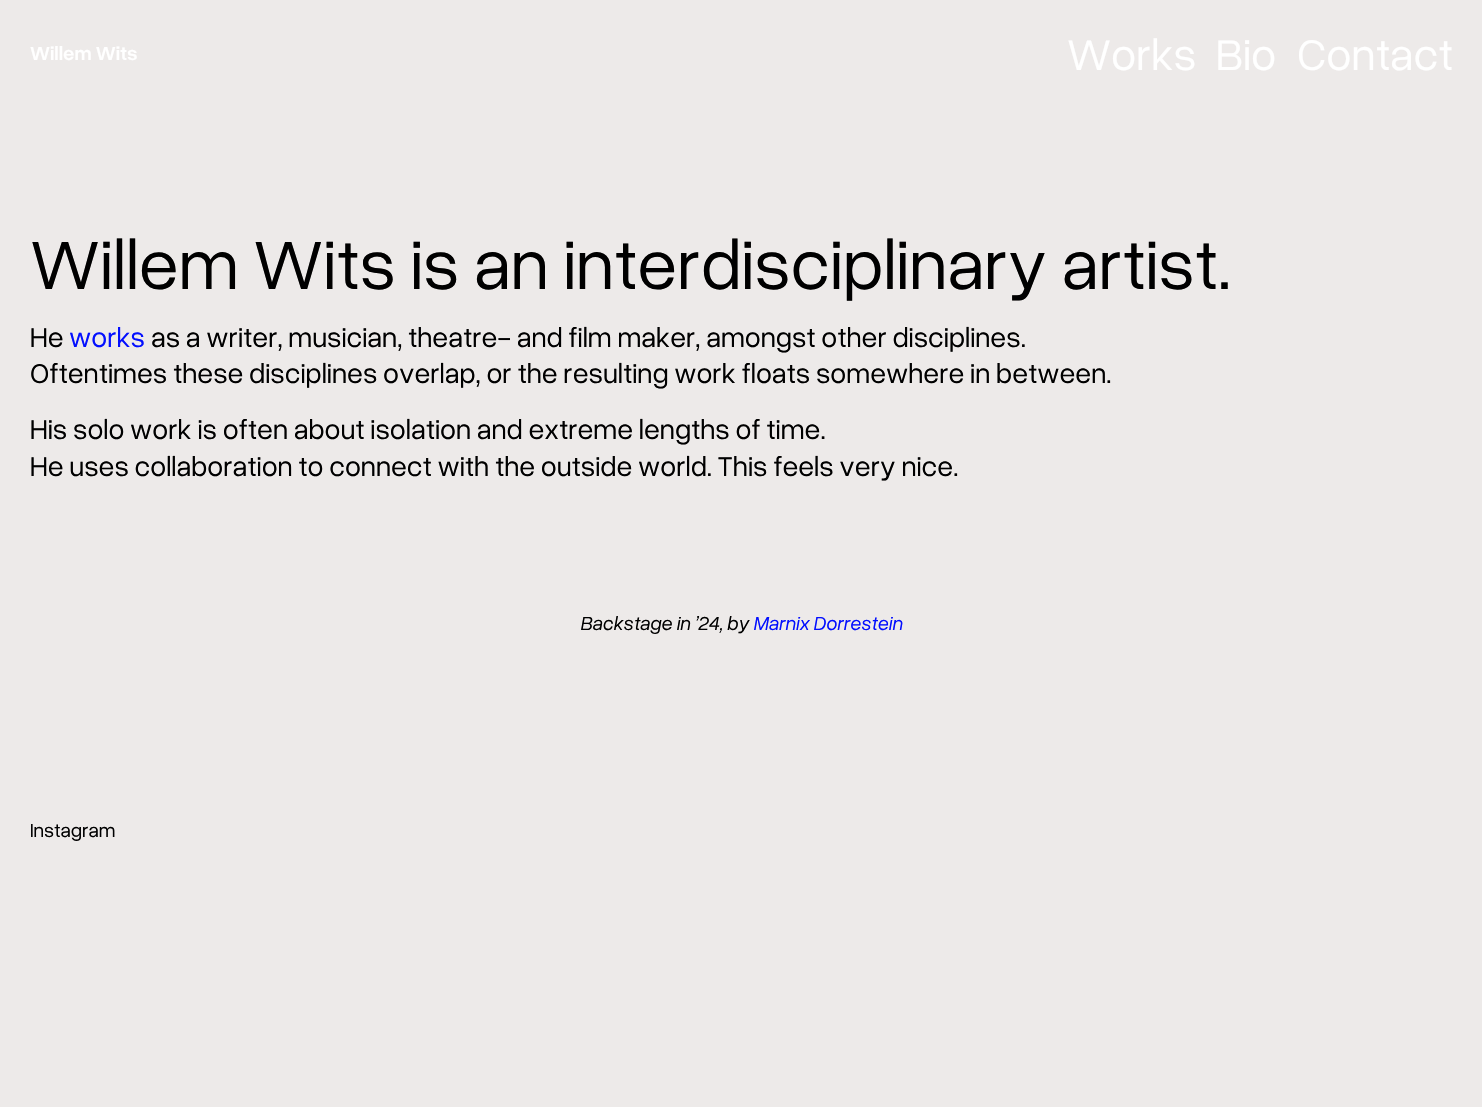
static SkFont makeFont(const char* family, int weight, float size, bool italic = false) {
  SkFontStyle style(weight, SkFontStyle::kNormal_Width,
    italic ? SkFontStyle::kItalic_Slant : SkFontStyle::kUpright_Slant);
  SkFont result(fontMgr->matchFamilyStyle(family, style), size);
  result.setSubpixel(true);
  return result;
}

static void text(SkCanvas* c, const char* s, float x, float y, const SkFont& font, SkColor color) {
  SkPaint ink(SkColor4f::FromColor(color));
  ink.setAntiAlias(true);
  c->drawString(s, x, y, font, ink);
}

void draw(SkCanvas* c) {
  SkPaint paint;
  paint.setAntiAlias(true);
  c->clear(0xffedeae9);
  SkFont face1 = makeFont("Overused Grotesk", 600, 20);
  text(c, "Willem Wits", 30, 60, face1, 0xffffffff);
  SkFont face2 = makeFont("Overused Grotesk", 400, 45.5f);
  text(c, "Works", 1067, 70, face2, 0xffffffff);
  text(c, "Bio", 1216, 70, face2, 0xffffffff);
  text(c, "Contact", 1297, 70, face2, 0xffffffff);
  SkFont face3 = makeFont("Overused Grotesk", 400, 72.25f);
  text(c, "Willem Wits is an interdisciplinary artist.", 30, 289, face3, 0xff000000);
  SkFont face4 = makeFont("Overused Grotesk", 400, 28.7f);
  text(c, "He", 30, 347, face4, 0xff000000);
  text(c, "works", 69, 347, face4, 0xff030fff);
  text(c, "as a writer, musician, theatre- and film maker, amongst other disciplines.", 151, 347, face4, 0xff000000);
  text(c, "Oftentimes these disciplines overlap, or the resulting work floats somewhere in between.", 30, 383, face4, 0xff000000);
  text(c, "His solo work is often about isolation and extreme lengths of time.", 30, 439, face4, 0xff000000);
  text(c, "He uses collaboration to connect with the outside world. This feels very nice.", 30, 476, face4, 0xff000000);
  SkFont face5 = makeFont("Overused Grotesk", 400, 20, true);
  text(c, "Backstage in ’24, by", 580, 630, face5, 0xff000000);
  text(c, "Marnix Dorrestein", 753, 630, face5, 0xff030fff);
  SkFont face6 = makeFont("Overused Grotesk", 400, 20);
  text(c, "Instagram", 30, 837, face6, 0xff000000);
}
